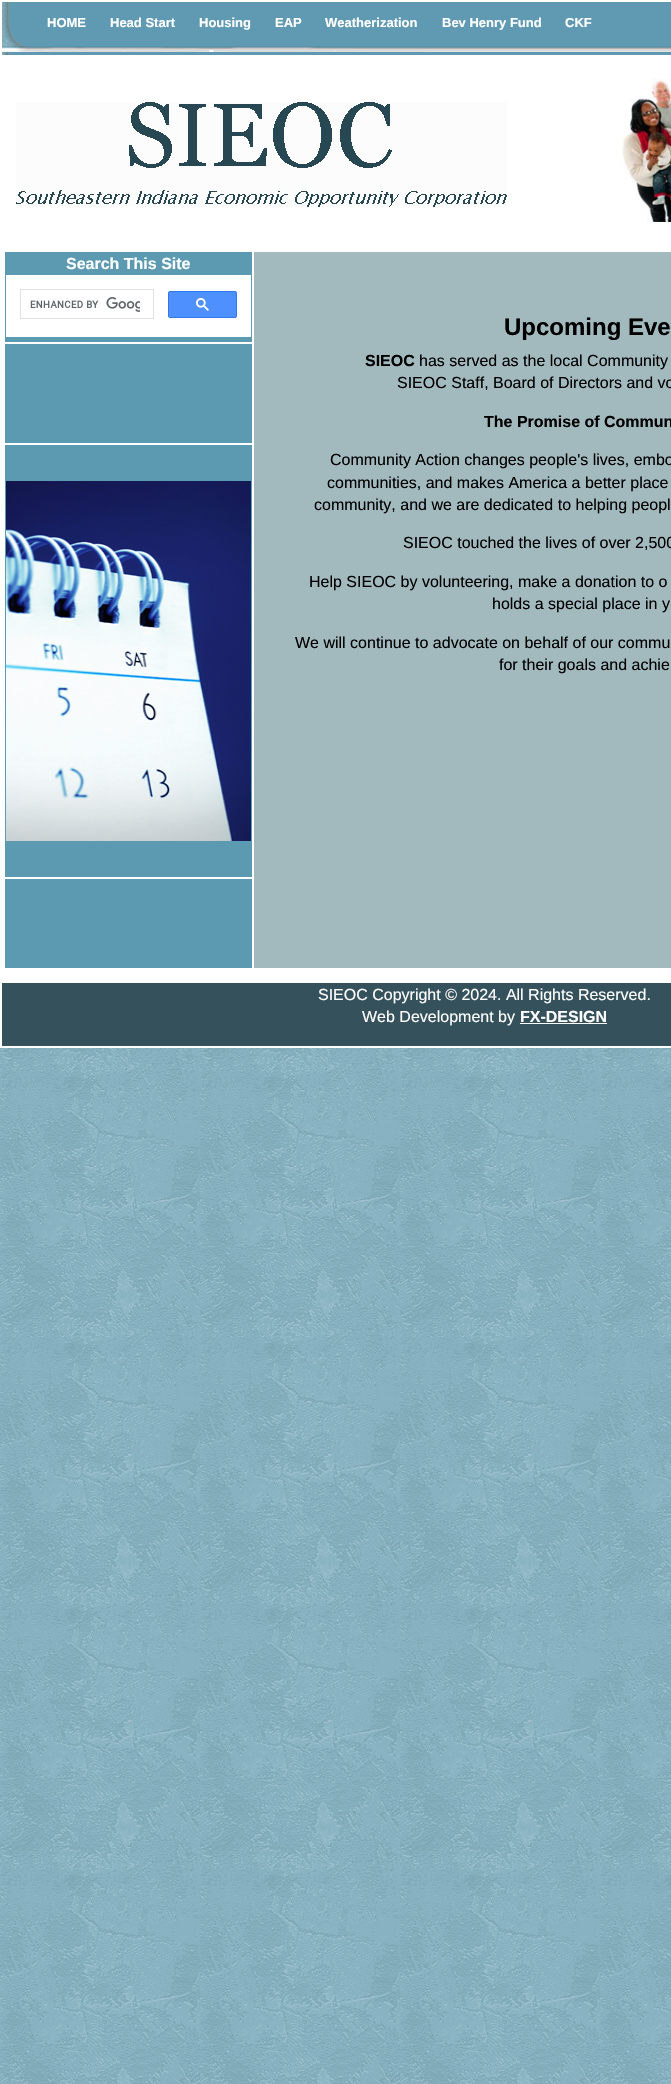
static SkFont makeFont(const char* family, int weight, float size, bool italic = false) {
  SkFontStyle style(weight, SkFontStyle::kNormal_Width,
    italic ? SkFontStyle::kItalic_Slant : SkFontStyle::kUpright_Slant);
  SkFont result(fontMgr->matchFamilyStyle(family, style), size);
  result.setSubpixel(true);
  return result;
}

static void text(SkCanvas* c, const char* s, float x, float y, const SkFont& font, SkColor color) {
  SkPaint ink(SkColor4f::FromColor(color));
  ink.setAntiAlias(true);
  c->drawString(s, x, y, font, ink);
}

static void box(SkCanvas* c, float l, float t, float r, float b, SkColor color) {
  SkPaint ink(SkColor4f::FromColor(color));
  ink.setAntiAlias(true);
  c->drawRect(SkRect::MakeLTRB(l, t, r, b), ink);
}

static void picture(SkCanvas* c, const char* path, float l, float t, float r, float b) {
  auto image = SkImages::DeferredFromEncodedData(SkData::MakeFromFileName(path));
  c->drawImageRect(image, SkRect::MakeLTRB(l, t, r, b), SkSamplingOptions());
}

void draw(SkCanvas* c) {
  SkPaint paint;
  paint.setAntiAlias(true);
  c->clear(0xffffffff);
  picture(c, "img_01.png", 0, 1048, 671, 2084);
  picture(c, "img_02.png", 2, 2, 671, 55);
  SkFont face1 = makeFont("Liberation Sans", 700, 13);
  text(c, "HOME", 47, 27, face1, 0xffffffff);
  text(c, "Head Start", 110, 27, face1, 0xffffffff);
  text(c, "Housing", 199, 27, face1, 0xffffffff);
  text(c, "EAP", 275, 27, face1, 0xffffffff);
  text(c, "Weatherization", 325, 27, face1, 0xffffffff);
  text(c, "Bev Henry Fund", 442, 27, face1, 0xffffffff);
  text(c, "CKF", 565, 27, face1, 0xffffffff);
  picture(c, "img_03.png", 16, 102, 507, 207);
  picture(c, "img_04.png", 622, 78, 671, 222);
  box(c, 5, 252, 252, 342, 0xff5c9ab2);
  SkFont face2 = makeFont("Liberation Sans", 700, 16);
  text(c, "Search This Site", 66, 269, face2, 0xffffffff);
  box(c, 6, 275, 251, 337, 0xffffffff);
  paint.setStyle(SkPaint::kStroke_Style);
  paint.setStrokeWidth(1);
  paint.setColor(0xffdfe1e5);
  c->drawRect(SkRect::MakeLTRB(20.5f, 289.5f, 153.5f, 318.5f), paint);
  picture(c, "img_05.png", 30, 297, 140, 312);
  paint.setStyle(SkPaint::kFill_Style);
  paint.setColor(0xff4d90fe);
  c->drawRoundRect(SkRect::MakeLTRB(168.5f, 291.5f, 236.5f, 317.5f), 1.5f, 1.5f, paint);
  paint.setStyle(SkPaint::kStroke_Style);
  paint.setColor(0xff3079ed);
  c->drawRoundRect(SkRect::MakeLTRB(168.5f, 291.5f, 236.5f, 317.5f), 1.5f, 1.5f, paint);
  picture(c, "img_06.png", 196, 298, 209, 311);
  box(c, 254, 252, 671, 968, 0xffa2b9be);
  SkFont face3 = makeFont("Liberation Sans", 700, 24);
  text(c, "Upcoming Eve", 504, 335, face3, 0xff000000);
  text(c, "SIEOC", 365, 366, face2, 0xff000000);
  SkFont face4 = makeFont("Liberation Sans", 400, 16);
  text(c, "has served as the local Community", 419, 366, face4, 0xff000000);
  text(c, "SIEOC Staff, Board of Directors and vo", 397, 388, face4, 0xff000000);
  text(c, "The Promise of Commun", 484, 427, face2, 0xff000000);
  text(c, "Community Action changes people's lives, embo", 330, 465, face4, 0xff000000);
  text(c, "communities, and makes America a better place", 327, 488, face4, 0xff000000);
  text(c, "community, and we are dedicated to helping peopl", 314, 510, face4, 0xff000000);
  text(c, "SIEOC touched the lives of over 2,500", 403, 548, face4, 0xff000000);
  text(c, "Help SIEOC by volunteering, make a donation to o", 309, 587, face4, 0xff000000);
  text(c, "holds a special place in y", 492, 609, face4, 0xff000000);
  text(c, "We will continue to advocate on behalf of our commu", 295, 648, face4, 0xff000000);
  text(c, "for their goals and achie", 499, 670, face4, 0xff000000);
  box(c, 5, 344, 252, 443, 0xff5c9ab2);
  box(c, 5, 445, 252, 877, 0xff5c9ab2);
  picture(c, "img_07.png", 6, 481, 251, 841);
  box(c, 5, 879, 252, 968, 0xff5c9ab2);
  box(c, 2, 983, 671, 1046, 0xff35515b);
  text(c, "SIEOC Copyright © 2024. All Rights Reserved.", 318, 1000, face4, 0xffffffff);
  text(c, "Web Development by", 362, 1022, face4, 0xffffffff);
  text(c, "FX-DESIGN", 520, 1022, face2, 0xffffffff);
  box(c, 520, 1023, 607, 1024, 0xffffffff);
}
